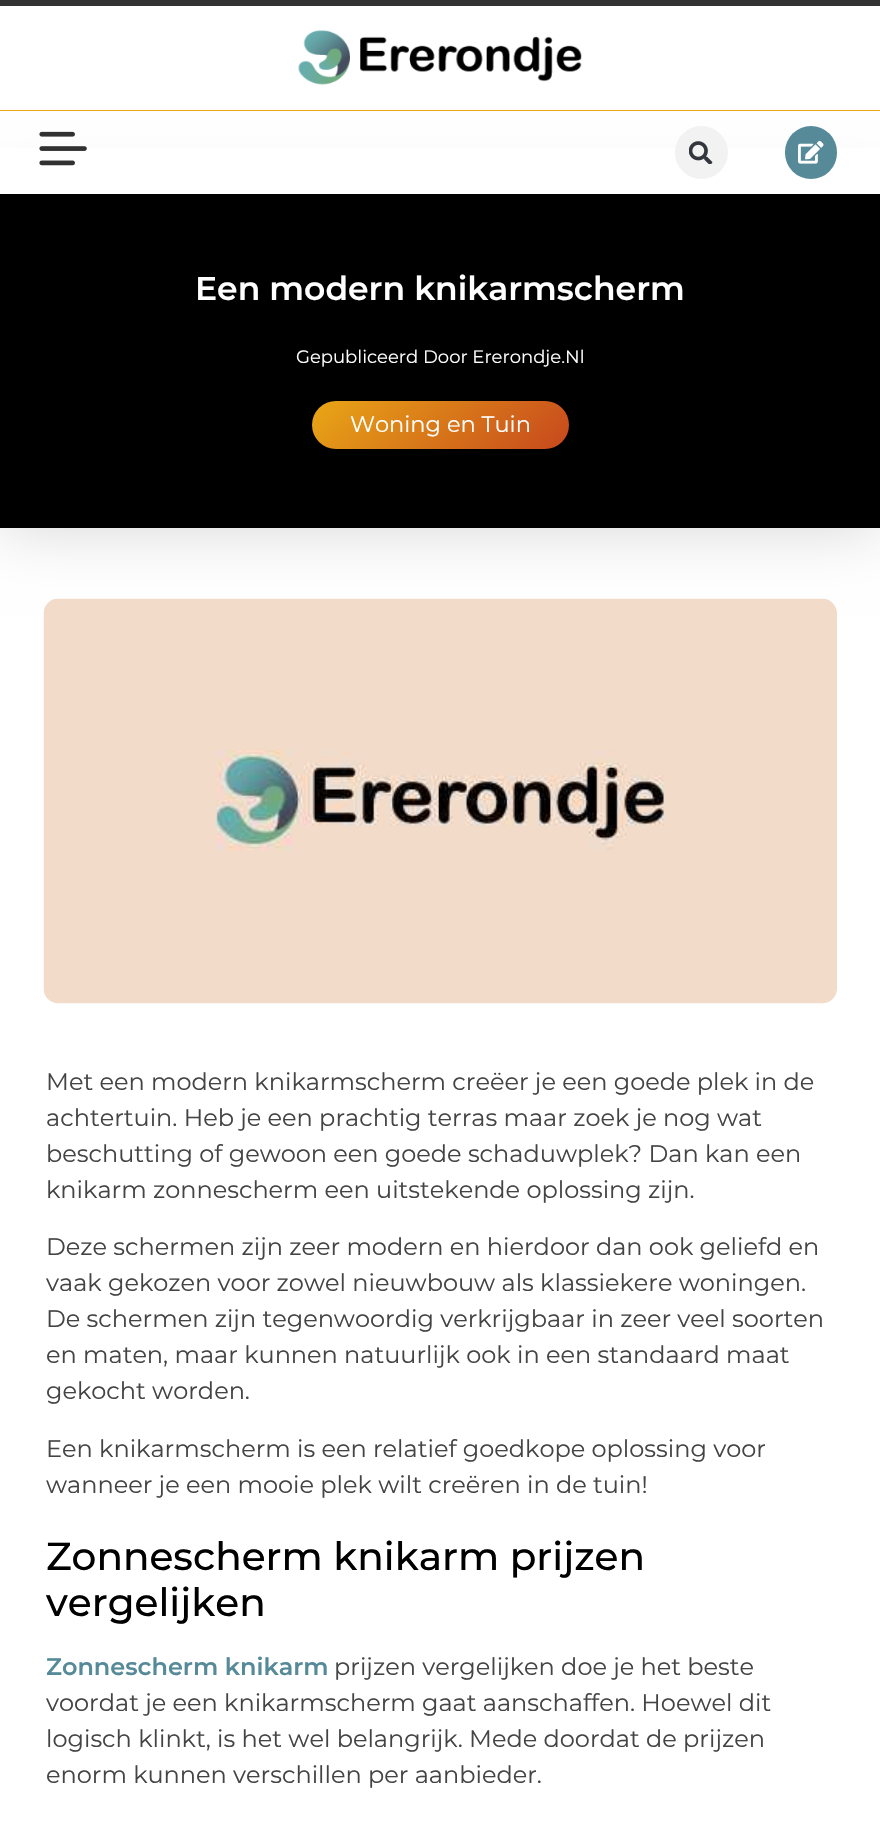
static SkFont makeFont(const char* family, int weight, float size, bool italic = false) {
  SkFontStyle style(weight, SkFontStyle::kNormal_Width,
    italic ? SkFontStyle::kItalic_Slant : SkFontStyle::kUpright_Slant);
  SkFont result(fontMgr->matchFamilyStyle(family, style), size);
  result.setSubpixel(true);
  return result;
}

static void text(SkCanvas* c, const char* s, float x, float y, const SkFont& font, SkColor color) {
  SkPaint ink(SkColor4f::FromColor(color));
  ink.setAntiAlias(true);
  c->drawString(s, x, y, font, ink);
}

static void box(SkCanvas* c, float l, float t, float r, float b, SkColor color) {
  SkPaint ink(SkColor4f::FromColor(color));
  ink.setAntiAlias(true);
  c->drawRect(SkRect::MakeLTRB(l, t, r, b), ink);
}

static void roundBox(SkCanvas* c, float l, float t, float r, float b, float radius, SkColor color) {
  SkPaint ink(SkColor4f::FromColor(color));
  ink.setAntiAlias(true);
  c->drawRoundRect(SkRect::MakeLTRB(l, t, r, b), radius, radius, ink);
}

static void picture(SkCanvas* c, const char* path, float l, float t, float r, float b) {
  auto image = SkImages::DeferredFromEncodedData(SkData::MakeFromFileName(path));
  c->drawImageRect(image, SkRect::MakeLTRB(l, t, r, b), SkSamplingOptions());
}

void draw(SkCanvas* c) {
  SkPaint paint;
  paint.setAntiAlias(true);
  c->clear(0xffffffff);
  box(c, 0, 0, 880, 6, 0xff333333);
  paint.setColor(0x29000000);
  paint.setMaskFilter(SkMaskFilter::MakeBlur(kNormal_SkBlurStyle, 30));
  c->drawRect(SkRect::MakeLTRB(0, 194, 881, 528), paint);
  paint.setMaskFilter(nullptr);
  box(c, 0, 110, 880, 111, 0xffe9a716);
  picture(c, "img_01.png", 298, 29, 582, 85);
  box(c, 0, 148, 880, 194, 0xffffffff);
  picture(c, "img_02.png", 39, 131, 87, 166);
  paint.setColor(0xfff2f2f2);
  c->drawCircle(701.5f, 152.5f, 26.5f, paint);
  picture(c, "img_03.png", 689, 141, 713, 164);
  roundBox(c, 785, 126, 837, 179, 26, 0xff568a99);
  picture(c, "img_04.png", 798, 140, 824, 164);
  box(c, 0, 194, 880, 528, 0xff000000);
  SkFont face1 = makeFont("Montserrat", 600, 33);
  text(c, "Een modern knikarmscherm", 195, 300, face1, 0xffffffff);
  SkFont face2 = makeFont("Montserrat", 400, 18);
  text(c, "Gepubliceerd Door Ererondje.Nl", 296, 363, face2, 0xffffffff);
  {
    const SkColor colors[] = {0xffe9a716, 0xffc7481d};
    const float stops[] = {0, 1};
    const SkPoint ends[] = {{364, 348}, {516, 501}};
    paint.setShader(SkGradientShader::MakeLinear(ends, colors, stops, 2, SkTileMode::kClamp));
    paint.setAlpha(255);
  }
  c->drawRoundRect(SkRect::MakeLTRB(312, 401, 569, 449), 24, 24, paint);
  SkFont face3 = makeFont("Montserrat", 400, 22.5f);
  text(c, "Woning en Tuin", 350, 432, face3, 0xffffffff);
  picture(c, "img_05.png", 43, 598, 837, 1004);
  SkFont face4 = makeFont("Montserrat", 400, 24);
  text(c, "Met een modern knikarmscherm creëer je een goede plek in de", 46, 1090, face4, 0xff444444);
  text(c, "achtertuin. Heb je een prachtig terras maar zoek je nog wat", 46, 1126, face4, 0xff444444);
  text(c, "beschutting of gewoon een goede schaduwplek? Dan kan een", 46, 1162, face4, 0xff444444);
  text(c, "knikarm zonnescherm een uitstekende oplossing zijn.", 46, 1198, face4, 0xff444444);
  text(c, "Deze schermen zijn zeer modern en hierdoor dan ook geliefd en", 46, 1255, face4, 0xff444444);
  text(c, "vaak gekozen voor zowel nieuwbouw als klassiekere woningen.", 46, 1291, face4, 0xff444444);
  text(c, "De schermen zijn tegenwoordig verkrijgbaar in zeer veel soorten", 46, 1327, face4, 0xff444444);
  text(c, "en maten, maar kunnen natuurlijk ook in een standaard maat", 46, 1363, face4, 0xff444444);
  text(c, "gekocht worden.", 46, 1399, face4, 0xff444444);
  text(c, "Een knikarmscherm is een relatief goedkope oplossing voor", 46, 1457, face4, 0xff444444);
  text(c, "wanneer je een mooie plek wilt creëren in de tuin!", 46, 1493, face4, 0xff444444);
  SkFont face5 = makeFont("Montserrat", 500, 39);
  text(c, "Zonnescherm knikarm prijzen", 46, 1570, face5, 0xff000000);
  text(c, "vergelijken", 46, 1616, face5, 0xff000000);
  SkFont face6 = makeFont("Montserrat", 600, 24);
  text(c, "Zonnescherm knikarm", 46, 1675, face6, 0xff568a99);
  text(c, "prijzen vergelijken doe je het beste", 334, 1675, face4, 0xff444444);
  text(c, "voordat je een knikarmscherm gaat aanschaffen. Hoewel dit", 46, 1711, face4, 0xff444444);
  text(c, "logisch klinkt, is het wel belangrijk. Mede doordat de prijzen", 46, 1747, face4, 0xff444444);
  text(c, "enorm kunnen verschillen per aanbieder.", 46, 1783, face4, 0xff444444);
}
